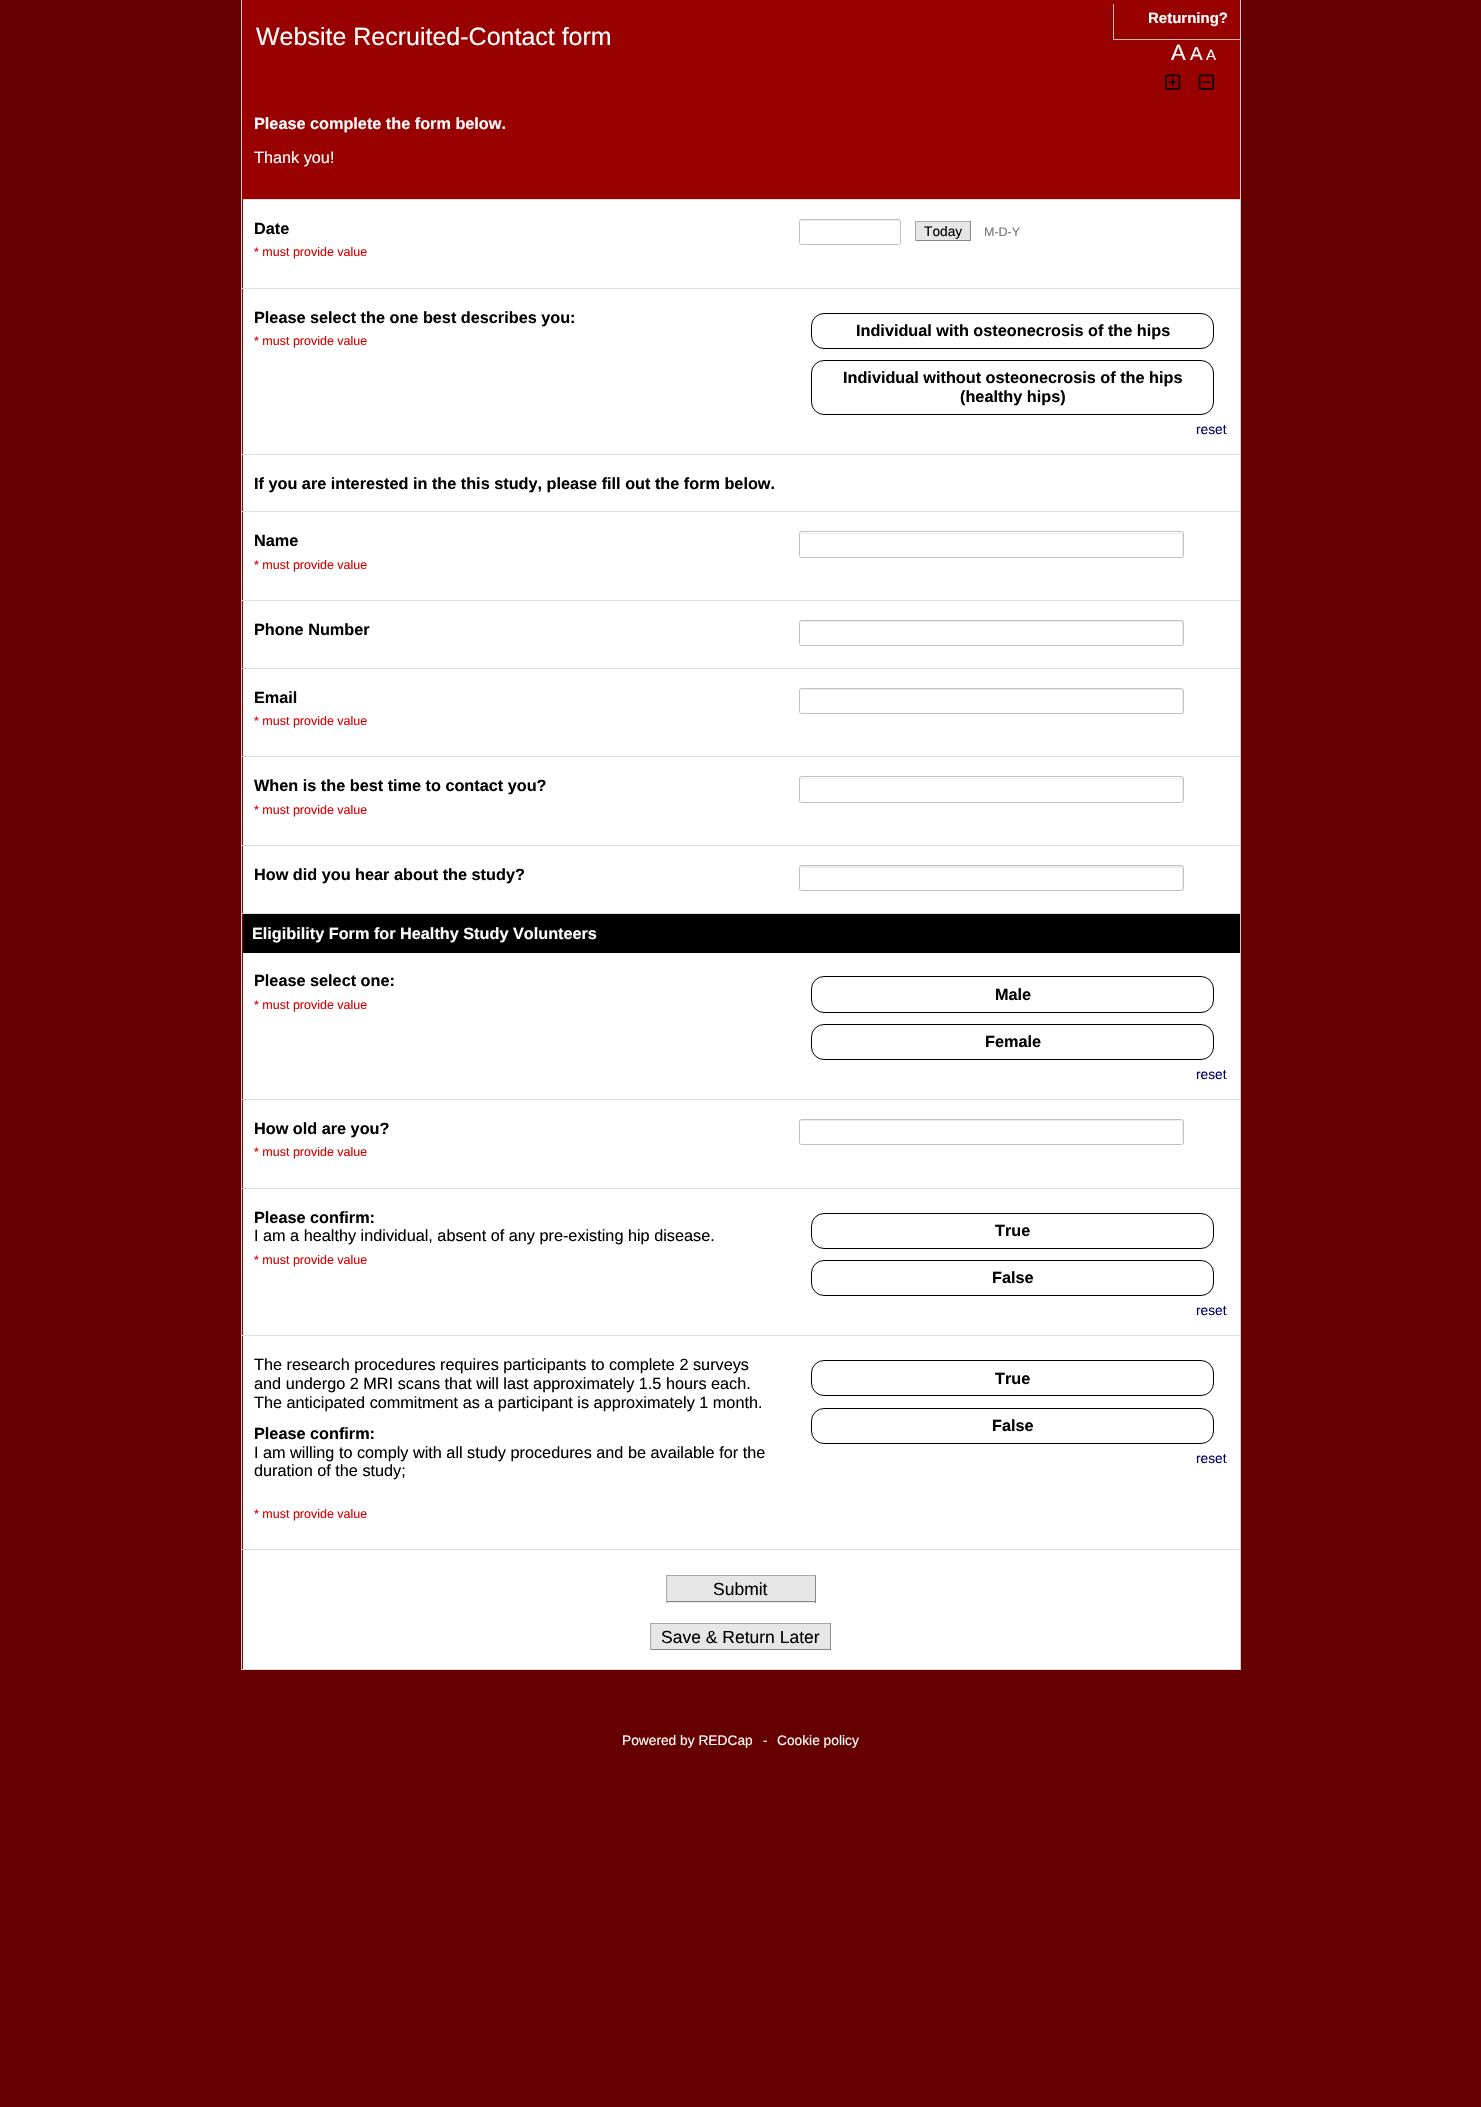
static SkFont makeFont(const char* family, int weight, float size, bool italic = false) {
  SkFontStyle style(weight, SkFontStyle::kNormal_Width,
    italic ? SkFontStyle::kItalic_Slant : SkFontStyle::kUpright_Slant);
  SkFont result(fontMgr->matchFamilyStyle(family, style), size);
  result.setSubpixel(true);
  return result;
}

static void text(SkCanvas* c, const char* s, float x, float y, const SkFont& font, SkColor color) {
  SkPaint ink(SkColor4f::FromColor(color));
  ink.setAntiAlias(true);
  c->drawString(s, x, y, font, ink);
}

static void box(SkCanvas* c, float l, float t, float r, float b, SkColor color) {
  SkPaint ink(SkColor4f::FromColor(color));
  ink.setAntiAlias(true);
  c->drawRect(SkRect::MakeLTRB(l, t, r, b), ink);
}

static void picture(SkCanvas* c, const char* path, float l, float t, float r, float b) {
  auto image = SkImages::DeferredFromEncodedData(SkData::MakeFromFileName(path));
  c->drawImageRect(image, SkRect::MakeLTRB(l, t, r, b), SkSamplingOptions());
}

void draw(SkCanvas* c) {
  SkPaint paint;
  paint.setAntiAlias(true);
  c->clear(0xff660000);
  box(c, 242, 0, 1240, 1669, 0xff990000);
  box(c, 1240, 0, 1241, 1670, 0xffcccccc);
  box(c, 241, 0, 242, 1670, 0xffcccccc);
  SkFont face1 = makeFont("Liberation Sans", 400, 25);
  text(c, "Website Recruited-Contact form", 256, 45, face1, 0xffffffff);
  box(c, 1113, 39, 1240, 40, 0xffbbbbbb);
  box(c, 1113, 4, 1114, 40, 0xffbbbbbb);
  SkFont face2 = makeFont("Liberation Sans", 700, 15);
  text(c, "Returning?", 1148, 23, face2, 0xffffffff);
  SkFont face3 = makeFont("Liberation Sans", 400, 22);
  text(c, "A", 1171, 60, face3, 0xffffffff);
  SkFont face4 = makeFont("Liberation Sans", 400, 19);
  text(c, "A", 1190, 60, face4, 0xffffffff);
  SkFont face5 = makeFont("Liberation Sans", 400, 15);
  text(c, "A", 1206, 60, face5, 0xffffffff);
  picture(c, "img_01.png", 1165, 74, 1181, 90);
  picture(c, "img_02.png", 1198, 74, 1215, 90);
  SkFont face6 = makeFont("Liberation Sans", 700, 16.25f);
  text(c, "Please complete the form below.", 254, 129, face6, 0xffffffff);
  SkFont face7 = makeFont("Liberation Sans", 400, 16.25f);
  text(c, "Thank you!", 254, 163, face7, 0xffffffff);
  box(c, 243, 199, 1240, 200, 0xffdddddd);
  box(c, 243, 200, 1240, 288, 0xffffffff);
  text(c, "Date", 254, 234, face6, 0xff000000);
  SkFont face8 = makeFont("Liberation Sans", 400, 12.5f);
  text(c, "* must provide value", 254, 256, face8, 0xffda0000);
  box(c, 241, 288, 1240, 289, 0xffdddddd);
  paint.setColor(0xffececec);
  c->drawPath(SkPathBuilder().moveTo(801, 221).lineTo(899, 221).lineTo(900, 222).cubicTo(900, 221, 900, 220, 899, 220).lineTo(801, 220).cubicTo(800, 220, 800, 221, 800, 222).close().detach(), paint);
  paint.setStyle(SkPaint::kStroke_Style);
  paint.setStrokeWidth(1);
  paint.setColor(0xffc1c1c1);
  c->drawRoundRect(SkRect::MakeLTRB(799.5f, 219.5f, 900.5f, 244.5f), 2, 2, paint);
  box(c, 916, 222, 970, 240, 0xffe6e6e6);
  box(c, 915, 221, 971, 222, 0xffaaaaaa);
  box(c, 970, 221, 971, 241, 0xff888888);
  box(c, 915, 240, 971, 241, 0xff888888);
  box(c, 915, 221, 916, 241, 0xffaaaaaa);
  SkFont face9 = makeFont("Liberation Sans", 400, 13.75f);
  text(c, "Today", 924, 236, face9, 0xff000000);
  text(c, "M-D-Y", 984, 236, face8, 0xff747474);
  box(c, 243, 289, 1240, 454, 0xffffffff);
  text(c, "Please select the one best describes you:", 254, 323, face6, 0xff000000);
  text(c, "* must provide value", 254, 345, face8, 0xffda0000);
  box(c, 241, 454, 1240, 455, 0xffdddddd);
  paint.setColor(0xff000000);
  c->drawRoundRect(SkRect::MakeLTRB(811.5f, 313.5f, 1213.5f, 348.5f), 12.5f, 12.5f, paint);
  text(c, "Individual with osteonecrosis of the hips", 856, 336, face6, 0xff000000);
  c->drawRoundRect(SkRect::MakeLTRB(811.5f, 360.5f, 1213.5f, 414.5f), 12.5f, 12.5f, paint);
  text(c, "Individual without osteonecrosis of the hips", 843, 383, face6, 0xff000000);
  text(c, "(healthy hips)", 960, 402, face6, 0xff000000);
  text(c, "reset", 1196, 434, face9, 0xff000066);
  box(c, 243, 455, 1240, 513, 0xffffffff);
  box(c, 241, 511, 1240, 512, 0xffdddddd);
  text(c, "If you are interested in the this study, please fill out the form below.", 254, 489, face6, 0xff000000);
  box(c, 241, 600, 1240, 601, 0xffdddddd);
  box(c, 243, 513, 1240, 600, 0xffffffff);
  paint.setStyle(SkPaint::kFill_Style);
  paint.setColor(0xffececec);
  c->drawPath(SkPathBuilder().moveTo(801, 534).lineTo(1181, 534).cubicTo(1182, 534, 1182, 534, 1182, 535).lineTo(1182, 556).cubicTo(1184, 556, 1183, 549, 1183, 548).cubicTo(1183, 546, 1184, 534, 1183, 533).lineTo(801, 533).cubicTo(800, 533, 800, 534, 800, 535).close().detach(), paint);
  paint.setStyle(SkPaint::kStroke_Style);
  paint.setColor(0xffc1c1c1);
  c->drawRoundRect(SkRect::MakeLTRB(799.5f, 531.5f, 1183.5f, 557.5f), 2, 2, paint);
  text(c, "Name", 254, 546, face6, 0xff000000);
  text(c, "* must provide value", 254, 569, face8, 0xffda0000);
  box(c, 241, 668, 1240, 669, 0xffdddddd);
  box(c, 243, 601, 1240, 668, 0xffffffff);
  paint.setStyle(SkPaint::kFill_Style);
  paint.setColor(0xffececec);
  c->drawPath(SkPathBuilder().moveTo(801, 622).lineTo(1181, 622).cubicTo(1182, 622, 1182, 623, 1182, 624).lineTo(1182, 645).cubicTo(1183, 645, 1183, 645, 1183, 644).lineTo(1183, 622).cubicTo(1183, 621, 1183, 621, 1182, 621).lineTo(801, 621).cubicTo(800, 621, 800, 621, 800, 622).lineTo(800, 624).close().detach(), paint);
  paint.setStyle(SkPaint::kStroke_Style);
  paint.setColor(0xffc1c1c1);
  c->drawRoundRect(SkRect::MakeLTRB(799.5f, 620.5f, 1183.5f, 645.5f), 2, 2, paint);
  text(c, "Phone Number", 254, 635, face6, 0xff000000);
  box(c, 243, 669, 1240, 758, 0xffffffff);
  box(c, 241, 756, 1240, 757, 0xffdddddd);
  paint.setStyle(SkPaint::kFill_Style);
  paint.setColor(0xffececec);
  c->drawPath(SkPathBuilder().moveTo(801, 690).lineTo(1181, 690).cubicTo(1183, 690, 1182, 697, 1182, 698).lineTo(1182, 713).cubicTo(1184, 713, 1183, 696, 1183, 690).lineTo(1182, 689).lineTo(801, 689).cubicTo(800, 689, 800, 690, 800, 691).close().detach(), paint);
  paint.setStyle(SkPaint::kStroke_Style);
  paint.setColor(0xffc1c1c1);
  c->drawRoundRect(SkRect::MakeLTRB(799.5f, 688.5f, 1183.5f, 713.5f), 2, 2, paint);
  text(c, "Email", 254, 703, face6, 0xff000000);
  text(c, "* must provide value", 254, 725, face8, 0xffda0000);
  box(c, 241, 845, 1240, 846, 0xffdddddd);
  box(c, 243, 758, 1240, 845, 0xffffffff);
  paint.setStyle(SkPaint::kFill_Style);
  paint.setColor(0xffececec);
  c->drawPath(SkPathBuilder().moveTo(801, 779).lineTo(1181, 779).cubicTo(1182, 779, 1182, 779, 1182, 780).lineTo(1182, 801).cubicTo(1184, 801, 1183, 794, 1183, 793).cubicTo(1183, 791, 1184, 779, 1183, 778).lineTo(801, 778).cubicTo(800, 778, 800, 779, 800, 780).close().detach(), paint);
  paint.setStyle(SkPaint::kStroke_Style);
  paint.setColor(0xffc1c1c1);
  c->drawRoundRect(SkRect::MakeLTRB(799.5f, 776.5f, 1183.5f, 802.5f), 2, 2, paint);
  text(c, "When is the best time to contact you?", 254, 791, face6, 0xff000000);
  text(c, "* must provide value", 254, 814, face8, 0xffda0000);
  box(c, 241, 913, 1240, 914, 0xffdddddd);
  box(c, 243, 846, 1240, 913, 0xffffffff);
  paint.setStyle(SkPaint::kFill_Style);
  paint.setColor(0xffececec);
  c->drawPath(SkPathBuilder().moveTo(801, 868).lineTo(1181, 868).cubicTo(1182, 868, 1182, 868, 1182, 869).lineTo(1182, 890).cubicTo(1183, 890, 1183, 890, 1183, 889).lineTo(1183, 867).cubicTo(1183, 866, 1183, 866, 1182, 866).lineTo(801, 866).cubicTo(800, 866, 800, 866, 800, 867).lineTo(800, 869).close().detach(), paint);
  paint.setStyle(SkPaint::kStroke_Style);
  paint.setColor(0xffc1c1c1);
  c->drawRoundRect(SkRect::MakeLTRB(799.5f, 865.5f, 1183.5f, 890.5f), 2, 2, paint);
  text(c, "How did you hear about the study?", 254, 880, face6, 0xff000000);
  box(c, 243, 914, 1240, 953, 0xff000000);
  text(c, "Eligibility Form for Healthy Study Volunteers", 252, 939, face6, 0xffffffff);
  box(c, 243, 953, 1240, 1099, 0xffffffff);
  text(c, "Please select one:", 254, 986, face6, 0xff000000);
  text(c, "* must provide value", 254, 1009, face8, 0xffda0000);
  box(c, 241, 1099, 1240, 1100, 0xffdddddd);
  paint.setColor(0xff000000);
  c->drawRoundRect(SkRect::MakeLTRB(811.5f, 976.5f, 1213.5f, 1012.5f), 12.5f, 12.5f, paint);
  text(c, "Male", 995, 1000, face6, 0xff000000);
  c->drawRoundRect(SkRect::MakeLTRB(811.5f, 1024.5f, 1213.5f, 1059.5f), 12.5f, 12.5f, paint);
  text(c, "Female", 985, 1047, face6, 0xff000000);
  text(c, "reset", 1196, 1079, face9, 0xff000066);
  box(c, 241, 1188, 1240, 1189, 0xffdddddd);
  box(c, 243, 1100, 1240, 1188, 0xffffffff);
  paint.setStyle(SkPaint::kFill_Style);
  paint.setColor(0xffececec);
  c->drawPath(SkPathBuilder().moveTo(801, 1121).lineTo(1181, 1121).cubicTo(1182, 1121, 1182, 1122, 1182, 1122).lineTo(1182, 1144).lineTo(1183, 1143).lineTo(1183, 1132).cubicTo(1183, 1130, 1184, 1120, 1182, 1120).lineTo(801, 1120).cubicTo(800, 1120, 800, 1121, 800, 1122).close().detach(), paint);
  paint.setStyle(SkPaint::kStroke_Style);
  paint.setColor(0xffc1c1c1);
  c->drawRoundRect(SkRect::MakeLTRB(799.5f, 1119.5f, 1183.5f, 1144.5f), 2, 2, paint);
  text(c, "How old are you?", 254, 1134, face6, 0xff000000);
  text(c, "* must provide value", 254, 1156, face8, 0xffda0000);
  box(c, 243, 1189, 1240, 1335, 0xffffffff);
  text(c, "Please confirm:", 254, 1223, face6, 0xff000000);
  text(c, "I am a healthy individual, absent of any pre-existing hip disease.", 254, 1241, face7, 0xff000000);
  text(c, "* must provide value", 254, 1264, face8, 0xffda0000);
  box(c, 241, 1335, 1240, 1336, 0xffdddddd);
  paint.setColor(0xff000000);
  c->drawRoundRect(SkRect::MakeLTRB(811.5f, 1213.5f, 1213.5f, 1248.5f), 12.5f, 12.5f, paint);
  text(c, "True", 995, 1236, face6, 0xff000000);
  c->drawRoundRect(SkRect::MakeLTRB(811.5f, 1260.5f, 1213.5f, 1295.5f), 12.5f, 12.5f, paint);
  text(c, "False", 992, 1283, face6, 0xff000000);
  text(c, "reset", 1196, 1315, face9, 0xff000066);
  box(c, 243, 1336, 1240, 1549, 0xffffffff);
  text(c, "The research procedures requires participants to complete 2 surveys", 254, 1370, face7, 0xff000000);
  text(c, "and undergo 2 MRI scans that will last approximately 1.5 hours each.", 254, 1389, face7, 0xff000000);
  text(c, "The anticipated commitment as a participant is approximately 1 month.", 254, 1408, face7, 0xff000000);
  text(c, "Please confirm:", 254, 1439, face6, 0xff000000);
  text(c, "I am willing to comply with all study procedures and be available for the", 254, 1458, face7, 0xff000000);
  text(c, "duration of the study;", 254, 1476, face7, 0xff000000);
  text(c, "* must provide value", 254, 1518, face8, 0xffda0000);
  box(c, 241, 1549, 1240, 1550, 0xffdddddd);
  c->drawRoundRect(SkRect::MakeLTRB(811.5f, 1360.5f, 1213.5f, 1395.5f), 12.5f, 12.5f, paint);
  text(c, "True", 995, 1384, face6, 0xff000000);
  c->drawRoundRect(SkRect::MakeLTRB(811.5f, 1408.5f, 1213.5f, 1443.5f), 12.5f, 12.5f, paint);
  text(c, "False", 992, 1431, face6, 0xff000000);
  text(c, "reset", 1196, 1463, face9, 0xff000066);
  box(c, 243, 1550, 1240, 1669, 0xffffffff);
  box(c, 241, 1669, 1240, 1670, 0xffdddddd);
  box(c, 667, 1576, 815, 1603, 0xffe6e6e6);
  box(c, 666, 1575, 816, 1576, 0xffaaaaaa);
  box(c, 815, 1575, 816, 1603, 0xff888888);
  box(c, 666, 1601, 816, 1602, 0xff888888);
  box(c, 666, 1575, 667, 1603, 0xffaaaaaa);
  SkFont face10 = makeFont("Liberation Sans", 400, 17.5f);
  text(c, "Submit", 713, 1595, face10, 0xff000000);
  box(c, 651, 1624, 830, 1649, 0xffe6e6e6);
  box(c, 650, 1623, 831, 1624, 0xffaaaaaa);
  box(c, 830, 1623, 831, 1650, 0xff888888);
  box(c, 650, 1649, 831, 1650, 0xff888888);
  box(c, 650, 1623, 651, 1650, 0xffaaaaaa);
  text(c, "Save & Return Later", 661, 1643, face10, 0xff000000);
  text(c, "Powered by REDCap", 622, 1745, face9, 0xffffffff);
  text(c, "-", 763, 1745, face9, 0xffffffff);
  text(c, "Cookie policy", 777, 1745, face9, 0xffffffff);
}
